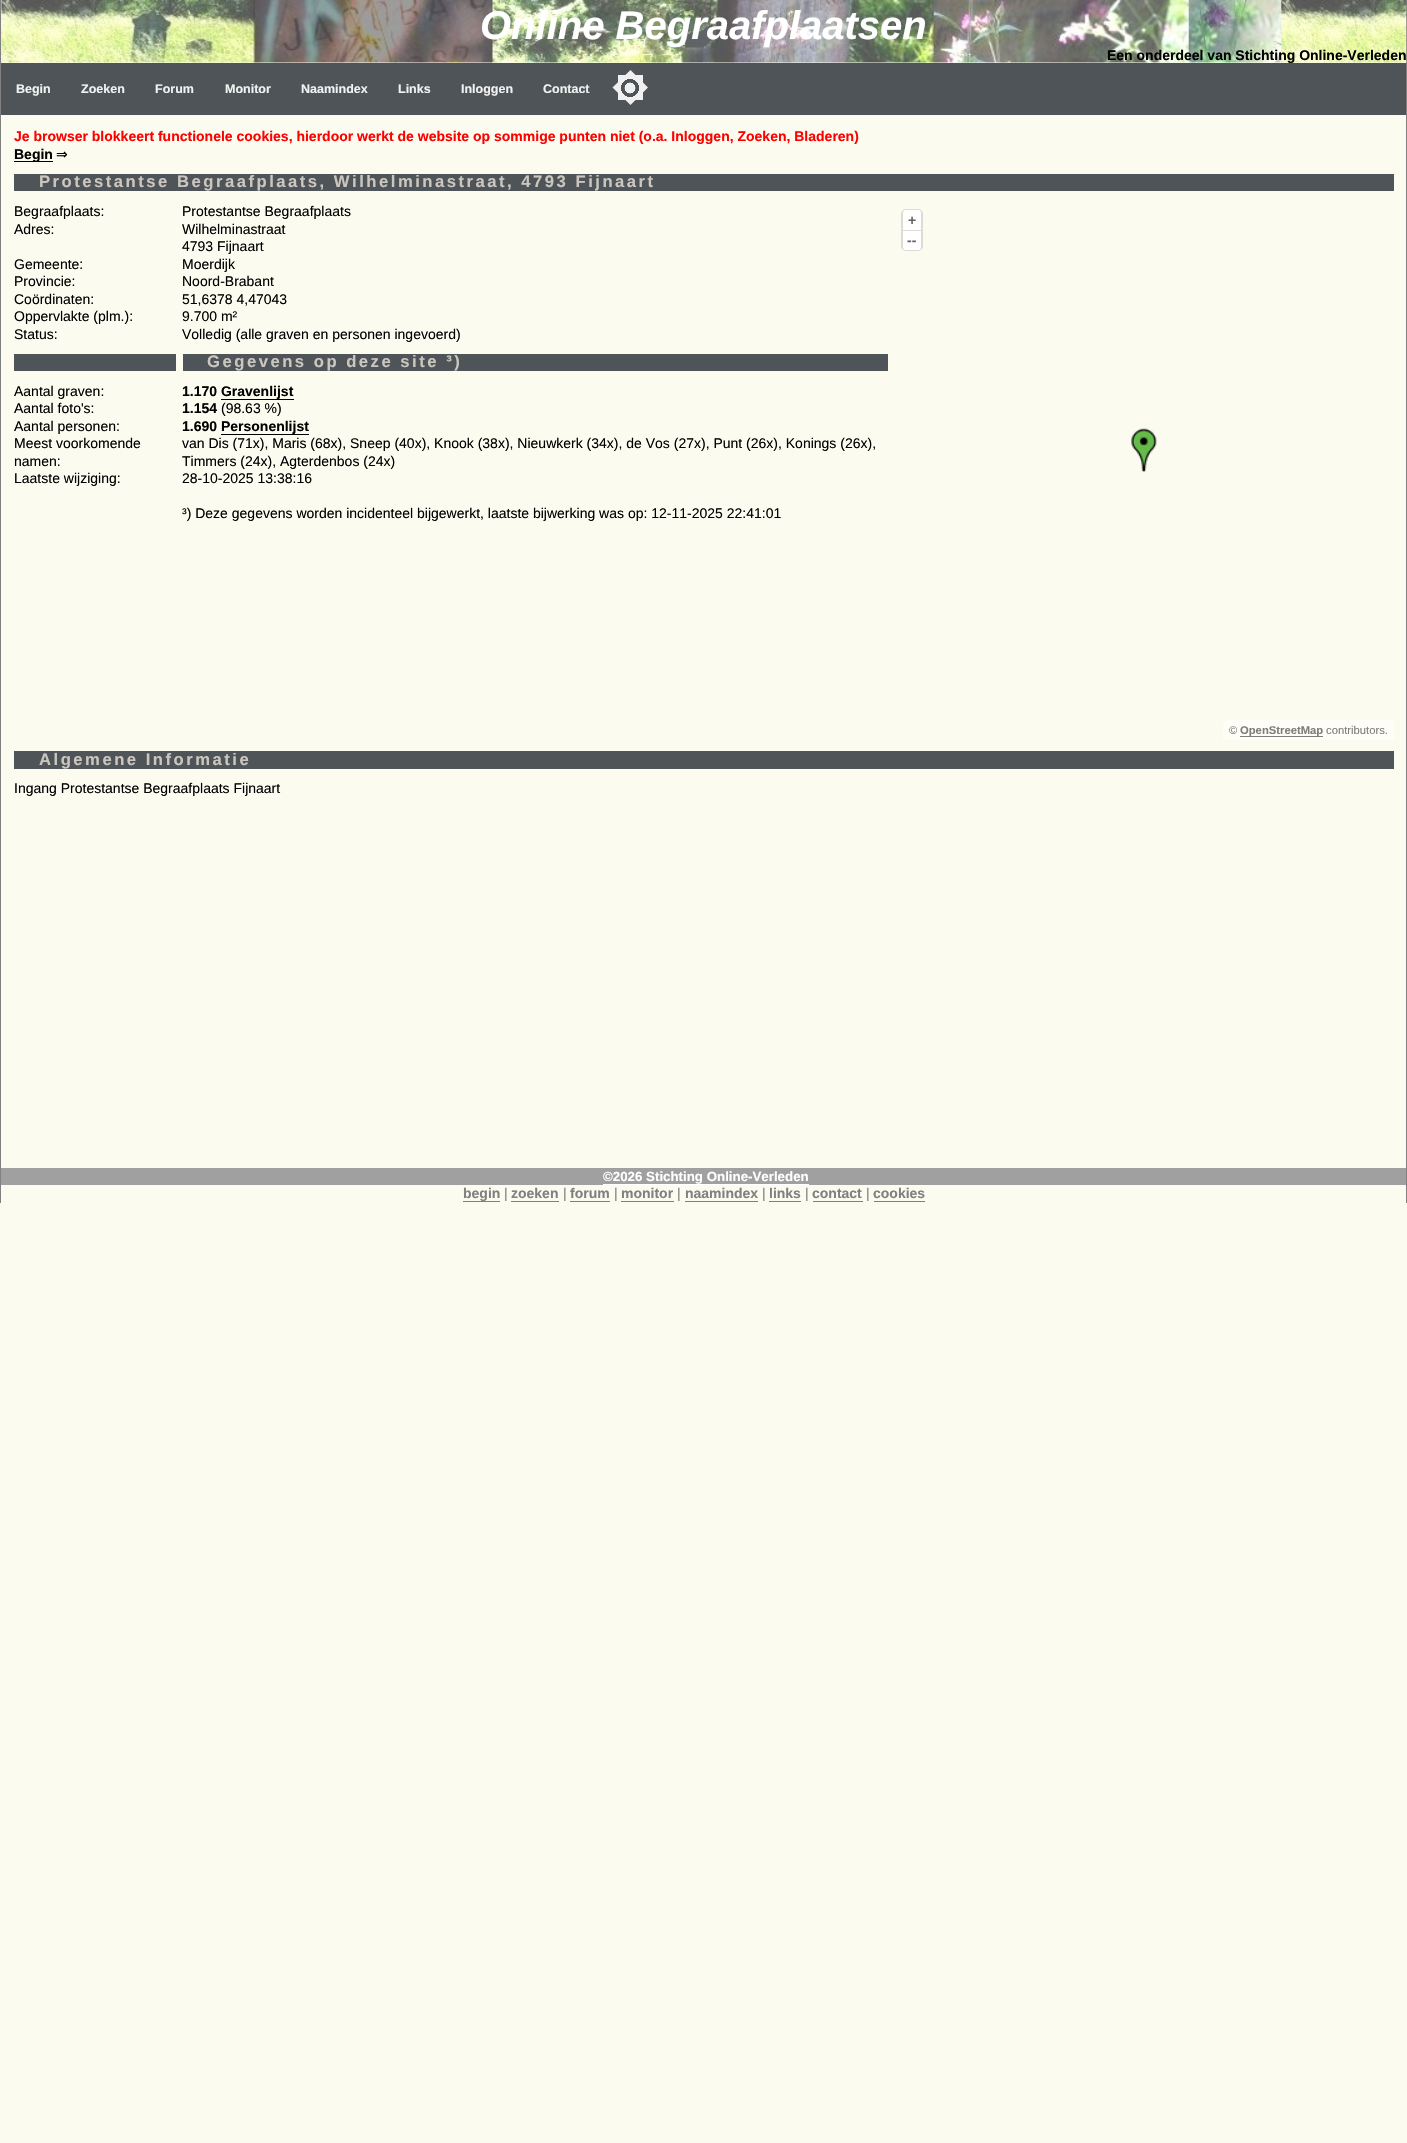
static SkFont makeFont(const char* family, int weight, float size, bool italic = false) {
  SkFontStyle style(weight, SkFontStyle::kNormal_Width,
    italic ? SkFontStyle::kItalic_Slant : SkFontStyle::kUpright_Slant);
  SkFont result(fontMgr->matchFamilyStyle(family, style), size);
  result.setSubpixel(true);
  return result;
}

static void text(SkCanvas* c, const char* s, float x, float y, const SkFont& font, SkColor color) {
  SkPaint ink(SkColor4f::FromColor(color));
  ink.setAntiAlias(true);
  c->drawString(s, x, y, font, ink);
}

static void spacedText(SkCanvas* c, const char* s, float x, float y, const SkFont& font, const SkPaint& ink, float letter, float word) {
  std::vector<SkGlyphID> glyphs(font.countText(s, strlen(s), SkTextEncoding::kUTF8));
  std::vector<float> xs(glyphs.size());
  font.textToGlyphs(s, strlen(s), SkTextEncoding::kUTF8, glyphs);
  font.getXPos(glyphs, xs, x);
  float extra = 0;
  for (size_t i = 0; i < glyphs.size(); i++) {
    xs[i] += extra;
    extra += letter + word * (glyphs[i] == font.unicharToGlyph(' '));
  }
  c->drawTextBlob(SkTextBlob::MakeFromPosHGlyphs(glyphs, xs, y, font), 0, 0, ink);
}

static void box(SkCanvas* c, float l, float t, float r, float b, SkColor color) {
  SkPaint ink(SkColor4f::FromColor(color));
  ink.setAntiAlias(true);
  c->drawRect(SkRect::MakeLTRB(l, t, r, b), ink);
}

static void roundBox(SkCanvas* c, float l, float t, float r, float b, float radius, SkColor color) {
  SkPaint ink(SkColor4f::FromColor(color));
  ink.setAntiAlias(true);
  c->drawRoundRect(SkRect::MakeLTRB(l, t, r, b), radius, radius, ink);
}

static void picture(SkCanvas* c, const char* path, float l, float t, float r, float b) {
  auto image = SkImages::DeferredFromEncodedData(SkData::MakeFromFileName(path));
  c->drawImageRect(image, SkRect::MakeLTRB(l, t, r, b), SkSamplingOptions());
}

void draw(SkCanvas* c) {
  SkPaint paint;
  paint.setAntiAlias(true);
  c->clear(0xfffcfbf0);
  box(c, 1406, 0, 1407, 1203, 0xff808080);
  box(c, 0, 0, 1, 1203, 0xff808080);
  picture(c, "img_01.png", 1, 0, 1407, 63);
  SkFont face1 = makeFont("Liberation Sans", 700, 40, true);
  text(c, "Online Begraafplaatsen", 480, 39, face1, 0xffffffff);
  SkFont face2 = makeFont("Liberation Sans", 700, 14);
  text(c, "Een onderdeel van Stichting Online-Verleden", 1107, 60, face2, 0xff000000);
  box(c, 1, 63, 1406, 115, 0xff4e5457);
  SkFont face3 = makeFont("Liberation Sans", 700, 12.5f);
  text(c, "Begin", 16, 93, face3, 0xfff2f2f2);
  text(c, "Zoeken", 81, 93, face3, 0xfff2f2f2);
  text(c, "Forum", 155, 93, face3, 0xfff2f2f2);
  text(c, "Monitor", 225, 93, face3, 0xfff2f2f2);
  text(c, "Naamindex", 301, 93, face3, 0xfff2f2f2);
  text(c, "Links", 398, 93, face3, 0xfff2f2f2);
  text(c, "Inloggen", 461, 93, face3, 0xfff2f2f2);
  text(c, "Contact", 543, 93, face3, 0xfff2f2f2);
  {
    const SkColor colors[] = {0xff4e5457, 0xff4e5457, 0xfff0f0f0};
    const float stops[] = {0, 0.5f, 0.5f};
    paint.setShader(SkGradientShader::MakeRadial({630, 88}, 18, colors, stops, 3, SkTileMode::kClamp));
    paint.setAlpha(255);
  }
  c->drawRect(SkRect::MakeLTRB(618, 75, 643, 100), paint);
  {
    const SkColor colors[] = {0xfff0f0f0, 0x00f0f0f0, 0x00f0f0f0, 0xfff0f0f0};
    const float stops[] = {0.3f, 0.31f, 0.5f, 0.5f};
    paint.setShader(SkGradientShader::MakeRadial({630, 88}, 18, colors, stops, 4, SkTileMode::kClamp));
    paint.setAlpha(255);
  }
  c->drawPath(SkPathBuilder().moveTo(630.5f, 105).lineTo(612.5f, 87.5f).lineTo(630.5f, 70).lineTo(648, 87.5f).close().detach(), paint);
  text(c, "Je browser blokkeert functionele cookies, hierdoor werkt de website op sommige punten niet (o.a. Inloggen, Zoeken, Bladeren)", 14, 141, face2, 0xffff0000);
  box(c, 14, 161, 53, 162, 0xff000000);
  text(c, "Begin", 14, 159, face2, 0xff000000);
  SkFont face4 = makeFont("DejaVu Sans", 400, 14);
  text(c, "⇒", 56, 159, face4, 0xff000000);
  box(c, 14, 174, 1394, 191, 0xff4e5457);
  SkFont face5 = makeFont("Liberation Sans", 700, 16.65f);
  paint.setShader(nullptr);
  paint.setColor(0xffcbc7c0);
  spacedText(c, "Protestantse Begraafplaats, Wilhelminastraat, 4793 Fijnaart", 39, 187, face5, paint, 2.5f, 0);
  SkFont face6 = makeFont("Liberation Sans", 400, 14);
  text(c, "Begraafplaats:", 14, 216, face6, 0xff000000);
  text(c, "Protestantse Begraafplaats", 182, 216, face6, 0xff000000);
  text(c, "Adres:", 14, 234, face6, 0xff000000);
  text(c, "Wilhelminastraat", 182, 234, face6, 0xff000000);
  text(c, "4793 Fijnaart", 182, 251, face6, 0xff000000);
  text(c, "Gemeente:", 14, 269, face6, 0xff000000);
  text(c, "Moerdijk", 182, 269, face6, 0xff000000);
  text(c, "Provincie:", 14, 286, face6, 0xff000000);
  text(c, "Noord-Brabant", 182, 286, face6, 0xff000000);
  text(c, "Coördinaten:", 14, 304, face6, 0xff000000);
  text(c, "51,6378 4,47043", 182, 304, face6, 0xff000000);
  text(c, "Oppervlakte (plm.):", 14, 321, face6, 0xff000000);
  text(c, "9.700 m²", 182, 321, face6, 0xff000000);
  text(c, "Status:", 14, 339, face6, 0xff000000);
  text(c, "Volledig (alle graven en personen ingevoerd)", 182, 339, face6, 0xff000000);
  box(c, 14, 354, 176, 371, 0xff4e5457);
  box(c, 183, 354, 888, 371, 0xff4e5457);
  spacedText(c, "Gegevens op deze site ³)", 207, 367, face5, paint, 2.5f, 0);
  text(c, "Aantal graven:", 14, 396, face6, 0xff000000);
  text(c, "1.170 Gravenlijst", 182, 396, face2, 0xff000000);
  box(c, 221, 399, 294, 400, 0xff000000);
  text(c, "Aantal foto's:", 14, 413, face6, 0xff000000);
  text(c, "1.154", 182, 413, face2, 0xff000000);
  text(c, "(98.63 %)", 221, 413, face6, 0xff000000);
  text(c, "Aantal personen:", 14, 431, face6, 0xff000000);
  text(c, "1.690 Personenlijst", 182, 431, face2, 0xff000000);
  box(c, 221, 434, 309, 435, 0xff000000);
  text(c, "Meest voorkomende", 14, 448, face6, 0xff000000);
  text(c, "namen:", 14, 466, face6, 0xff000000);
  text(c, "van Dis (71x), Maris (68x), Sneep (40x), Knook (38x), Nieuwkerk (34x), de Vos (27x), Punt (26x), Konings (26x),", 182, 448, face6, 0xff000000);
  text(c, "Timmers (24x), Agterdenbos (24x)", 182, 466, face6, 0xff000000);
  text(c, "Laatste wijziging:", 14, 483, face6, 0xff000000);
  text(c, "28-10-2025 13:38:16", 182, 483, face6, 0xff000000);
  text(c, "³) Deze gegevens worden incidenteel bijgewerkt, laatste bijwerking was op: 12-11-2025 22:41:01", 182, 518, face6, 0xff000000);
  roundBox(c, 901, 209, 923, 251, 5, 0xffdddcd4);
  paint.setColor(0xffffffff);
  c->drawPath(SkPathBuilder().moveTo(905.5f, 210).lineTo(918.5f, 210).cubicTo(920, 210, 921, 211, 921, 212.5f).lineTo(921, 230).lineTo(903, 230).lineTo(903, 212.5f).cubicTo(903, 211, 904, 210, 905.5f, 210).close().detach(), paint);
  text(c, "+", 908, 225, face2, 0xff666666);
  c->drawPath(SkPathBuilder().moveTo(903, 231).lineTo(921, 231).lineTo(921, 247.5f).cubicTo(921, 249, 920, 250, 918.5f, 250).lineTo(905.5f, 250).cubicTo(904, 250, 903, 249, 903, 247.5f).close().detach(), paint);
  text(c, "--", 907, 245, face2, 0xff666666);
  paint.setColor(0xfffefdf6);
  c->drawPath(SkPathBuilder().moveTo(1228, 720).lineTo(1394, 720).lineTo(1394, 740).lineTo(1223, 740).lineTo(1223, 725).cubicTo(1223, 722, 1225, 720, 1228, 720).close().detach(), paint);
  SkFont face7 = makeFont("Liberation Sans", 400, 11.25f);
  text(c, "©", 1229, 734, face7, 0xff7e7e78);
  box(c, 1240, 736, 1323, 737, 0xff7e7e78);
  SkFont face8 = makeFont("Liberation Sans", 700, 11.25f);
  text(c, "OpenStreetMap", 1240, 734, face8, 0xff7e7e78);
  text(c, "contributors.", 1326, 734, face7, 0xff7e7e78);
  picture(c, "img_02.png", 1131, 428, 1157, 472);
  box(c, 14, 751, 1394, 769, 0xff4e5457);
  paint.setColor(0xffcbc7c0);
  spacedText(c, "Algemene Informatie", 39, 765, face5, paint, 2.5f, 0);
  text(c, "Ingang Protestantse Begraafplaats Fijnaart", 14, 793, face6, 0xff000000);
  box(c, 1, 1168, 1406, 1185, 0xffa0a0a0);
  SkFont face9 = makeFont("Liberation Sans", 700, 13.3f);
  text(c, "©2026 Stichting Online-Verleden", 603, 1181, face9, 0xffffffff);
  box(c, 603, 1184, 809, 1185, 0xffffffff);
  text(c, "begin", 463, 1198, face2, 0xff808080);
  box(c, 463, 1201, 500, 1202, 0xff808080);
  text(c, "|", 504, 1198, face6, 0xff808080);
  text(c, "zoeken", 511, 1198, face2, 0xff808080);
  box(c, 511, 1201, 559, 1202, 0xff808080);
  text(c, "|", 563, 1198, face6, 0xff808080);
  text(c, "forum", 570, 1198, face2, 0xff808080);
  box(c, 570, 1201, 610, 1202, 0xff808080);
  text(c, "|", 614, 1198, face6, 0xff808080);
  text(c, "monitor", 621, 1198, face2, 0xff808080);
  box(c, 621, 1201, 674, 1202, 0xff808080);
  text(c, "|", 677, 1198, face6, 0xff808080);
  text(c, "naamindex", 685, 1198, face2, 0xff808080);
  box(c, 685, 1201, 758, 1202, 0xff808080);
  text(c, "|", 762, 1198, face6, 0xff808080);
  text(c, "links", 769, 1198, face2, 0xff808080);
  box(c, 769, 1201, 801, 1202, 0xff808080);
  text(c, "|", 805, 1198, face6, 0xff808080);
  text(c, "contact", 812, 1198, face2, 0xff808080);
  box(c, 813, 1201, 863, 1202, 0xff808080);
  text(c, "|", 866, 1198, face6, 0xff808080);
  text(c, "cookies", 873, 1198, face2, 0xff808080);
  box(c, 874, 1201, 925, 1202, 0xff808080);
}
